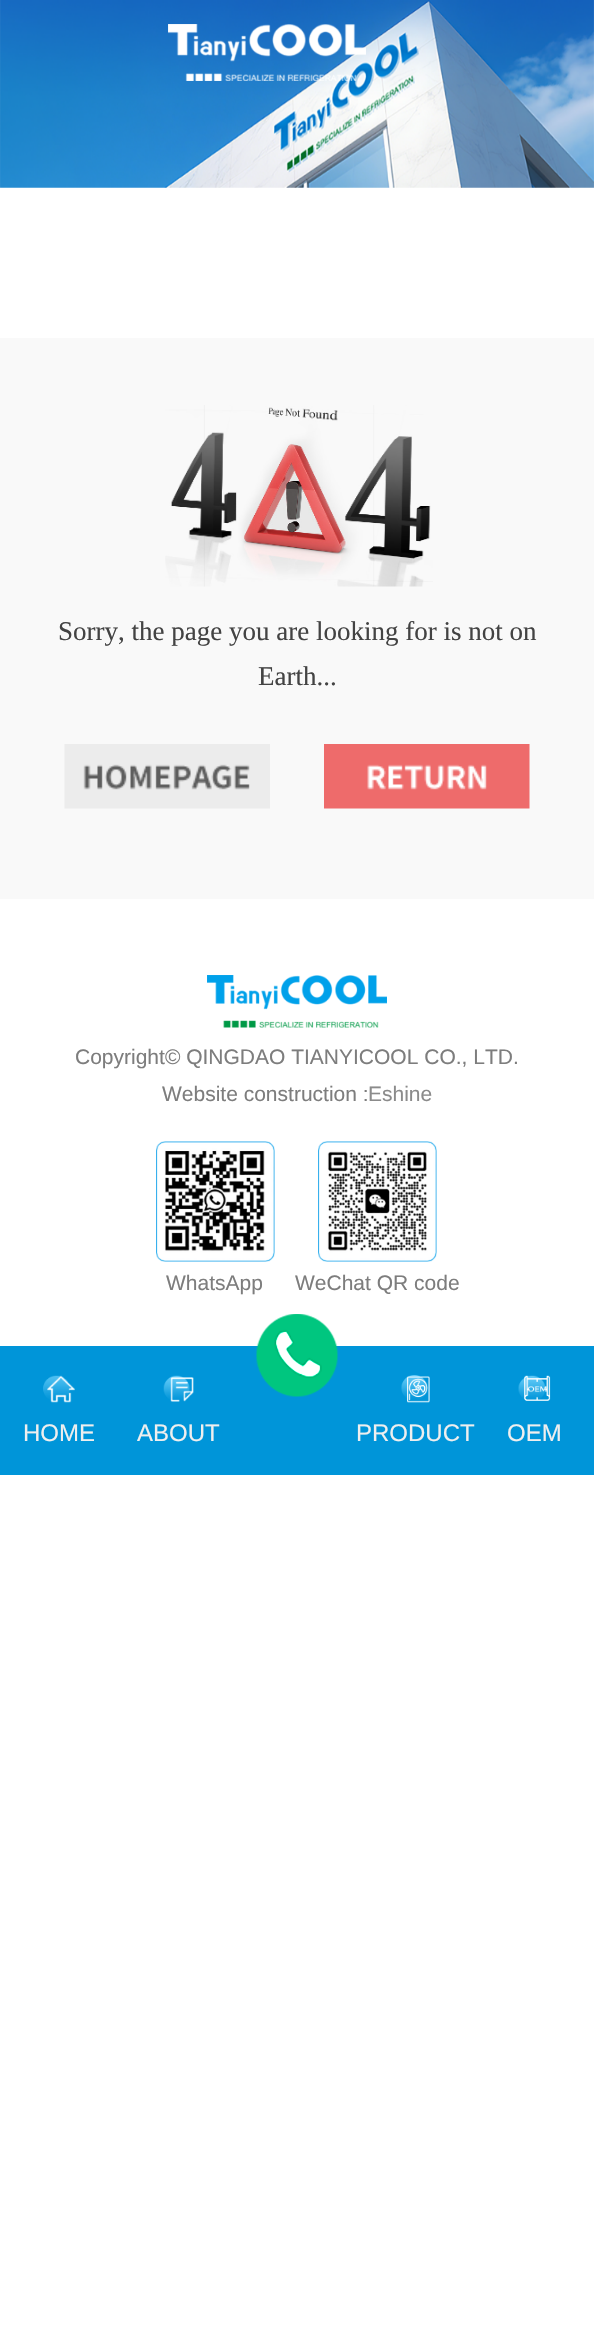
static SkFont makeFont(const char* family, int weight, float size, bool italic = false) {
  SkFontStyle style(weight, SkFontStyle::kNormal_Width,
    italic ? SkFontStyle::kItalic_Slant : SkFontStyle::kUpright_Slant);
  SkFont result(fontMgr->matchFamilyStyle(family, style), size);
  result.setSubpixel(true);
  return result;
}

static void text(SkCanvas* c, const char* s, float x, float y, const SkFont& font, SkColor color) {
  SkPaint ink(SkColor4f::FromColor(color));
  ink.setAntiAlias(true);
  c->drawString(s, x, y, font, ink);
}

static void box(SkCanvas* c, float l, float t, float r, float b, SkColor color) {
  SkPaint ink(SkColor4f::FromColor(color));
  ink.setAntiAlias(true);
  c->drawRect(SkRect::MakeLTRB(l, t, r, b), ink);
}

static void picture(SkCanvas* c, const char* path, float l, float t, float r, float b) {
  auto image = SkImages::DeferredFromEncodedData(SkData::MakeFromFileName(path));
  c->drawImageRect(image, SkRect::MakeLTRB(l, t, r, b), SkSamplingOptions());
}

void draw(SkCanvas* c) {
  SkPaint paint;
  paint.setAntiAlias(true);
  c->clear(0xffffffff);
  picture(c, "img_01.png", 0, 0, 594, 188);
  picture(c, "img_02.png", 168, 24, 366, 81);
  box(c, 0, 338, 594, 899, 0xfff9f9f9);
  picture(c, "img_03.png", 165, 405, 433, 587);
  SkFont face1 = makeFont("Liberation Serif", 400, 27);
  text(c, "Sorry, the page you are looking for is not on", 58, 640, face1, 0xff434343);
  text(c, "Earth...", 258, 685, face1, 0xff434343);
  picture(c, "img_04.png", 64, 744, 270, 809);
  picture(c, "img_05.png", 324, 744, 530, 809);
  picture(c, "img_06.png", 207, 975, 387, 1028);
  SkFont face2 = makeFont("Liberation Sans", 400, 21);
  text(c, "Copyright© QINGDAO TIANYICOOL CO., LTD.", 75, 1064, face2, 0xff7d7d7d);
  text(c, "Website construction :", 162, 1101, face2, 0xff7d7d7d);
  text(c, "Eshine", 368, 1101, face2, 0xff8b8b8b);
  picture(c, "img_07.png", 156, 1141, 275, 1262);
  text(c, "WhatsApp", 166, 1290, face2, 0xff7d7d7d);
  picture(c, "img_08.png", 318, 1141, 437, 1262);
  text(c, "WeChat QR code", 295, 1290, face2, 0xff7d7d7d);
  box(c, 0, 1346, 594, 1475, 0xff0095d9);
  picture(c, "img_09.png", 256, 1314, 338, 1397);
  picture(c, "img_10.png", 43, 1375, 75, 1403);
  SkFont face3 = makeFont("Liberation Sans", 400, 24);
  text(c, "HOME", 23, 1441, face3, 0xffefefef);
  picture(c, "img_11.png", 163, 1375, 194, 1402);
  text(c, "ABOUT", 137, 1441, face3, 0xffefefef);
  picture(c, "img_12.png", 401, 1375, 430, 1403);
  text(c, "PRODUCT", 356, 1441, face3, 0xffefefef);
  picture(c, "img_13.png", 518, 1375, 551, 1401);
  text(c, "OEM", 507, 1441, face3, 0xffefefef);
}
